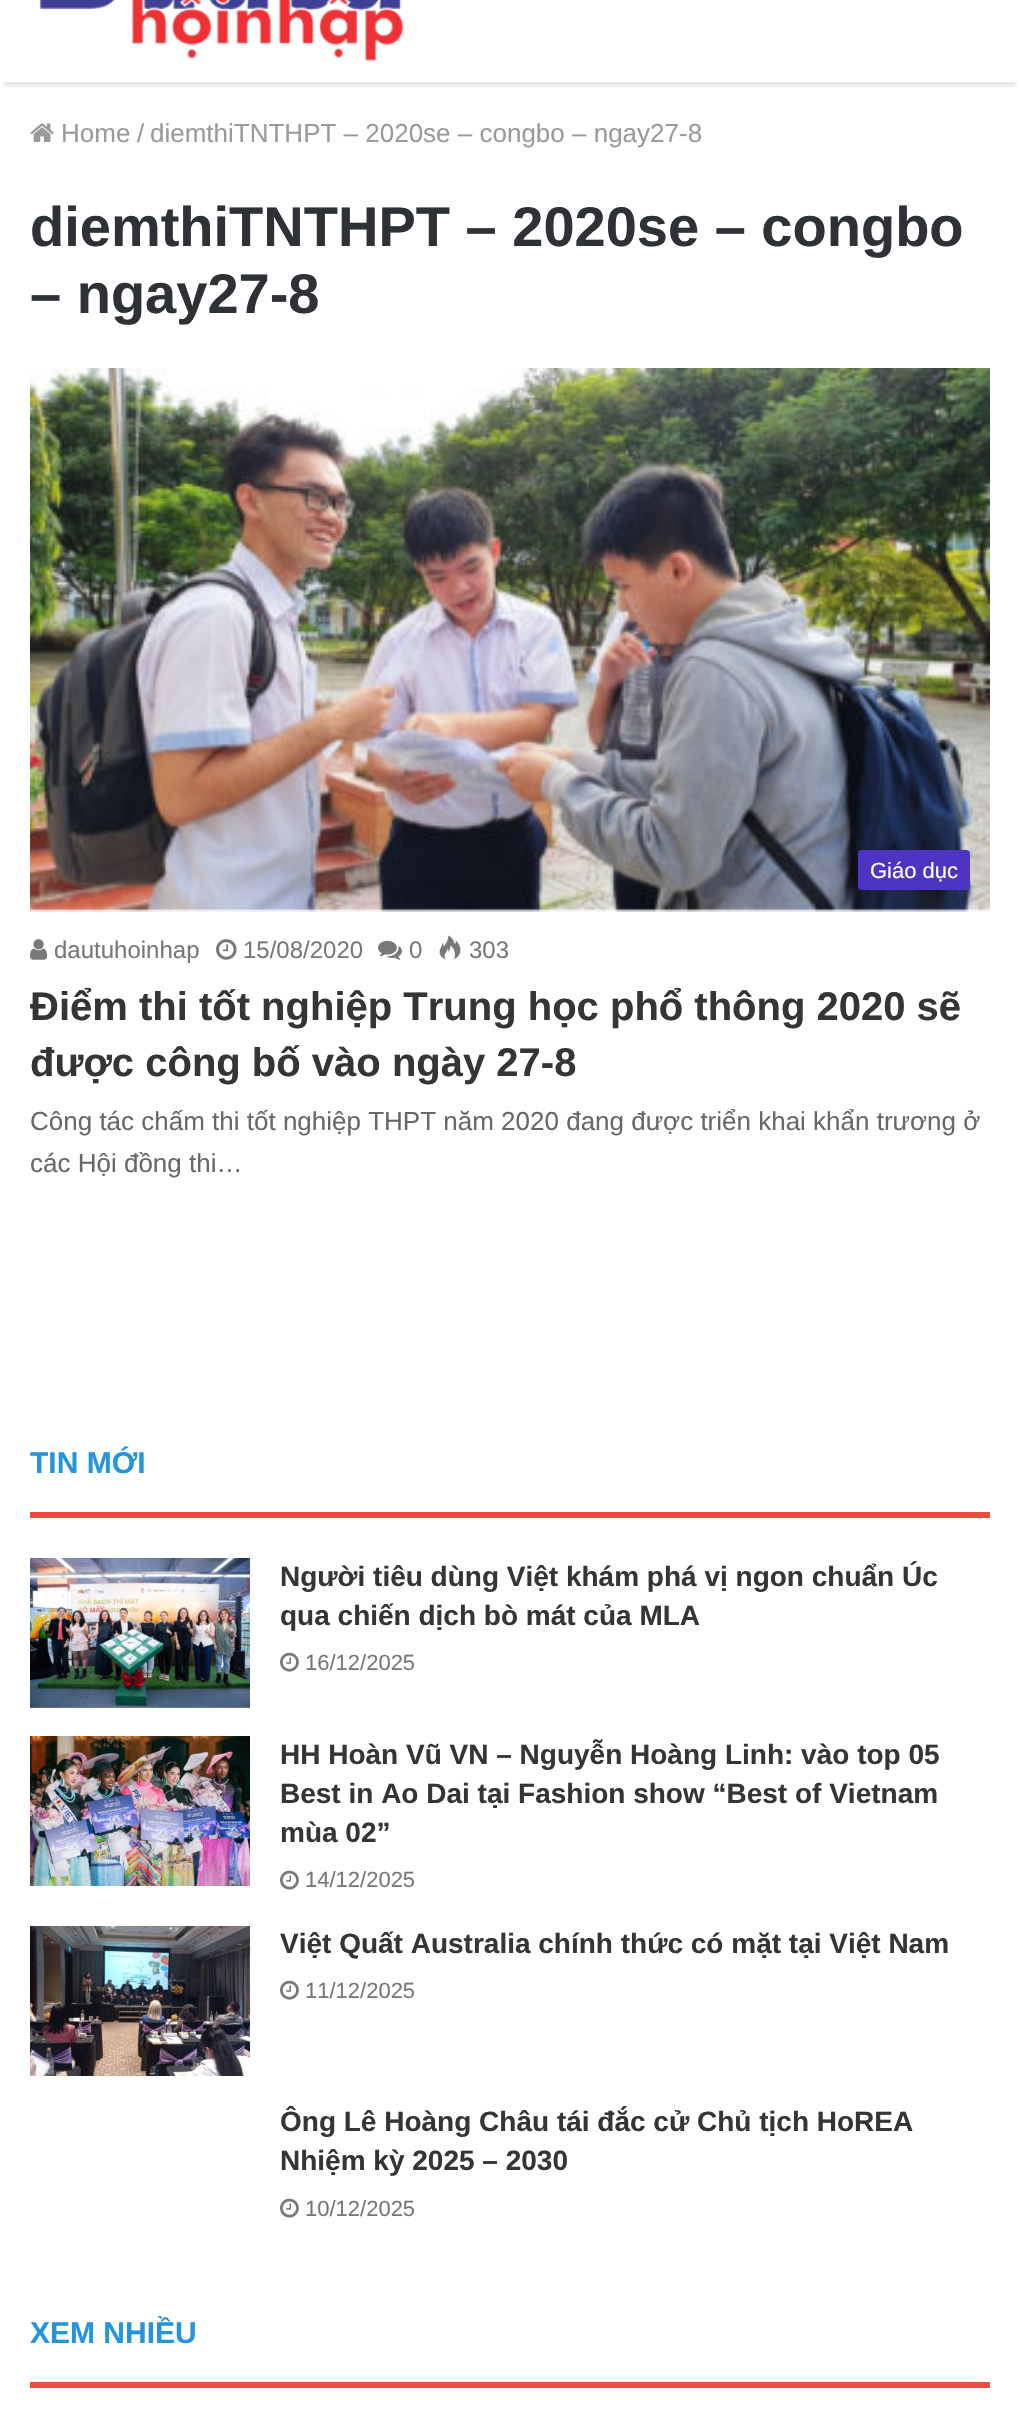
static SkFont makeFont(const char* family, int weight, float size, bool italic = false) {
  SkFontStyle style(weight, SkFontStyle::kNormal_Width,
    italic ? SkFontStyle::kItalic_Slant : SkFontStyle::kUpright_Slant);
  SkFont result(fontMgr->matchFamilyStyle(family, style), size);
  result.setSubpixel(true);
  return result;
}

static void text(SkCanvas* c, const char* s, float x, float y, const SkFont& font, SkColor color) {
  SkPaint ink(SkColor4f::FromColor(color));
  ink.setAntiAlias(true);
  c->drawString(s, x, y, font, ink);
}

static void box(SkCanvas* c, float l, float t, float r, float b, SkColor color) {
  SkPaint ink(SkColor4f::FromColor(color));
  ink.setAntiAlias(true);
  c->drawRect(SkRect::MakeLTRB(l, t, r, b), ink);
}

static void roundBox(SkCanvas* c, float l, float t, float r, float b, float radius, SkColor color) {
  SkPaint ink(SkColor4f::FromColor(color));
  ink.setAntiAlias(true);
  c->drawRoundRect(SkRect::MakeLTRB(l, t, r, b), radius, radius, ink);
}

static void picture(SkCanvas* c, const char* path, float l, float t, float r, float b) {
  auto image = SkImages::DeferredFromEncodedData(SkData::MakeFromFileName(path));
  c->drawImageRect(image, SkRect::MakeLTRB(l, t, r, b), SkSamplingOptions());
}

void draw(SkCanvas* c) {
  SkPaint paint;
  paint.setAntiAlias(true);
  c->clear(0xffffffff);
  c->save();
  c->clipRect(SkRect::MakeLTRB(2, 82, 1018, 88));
  paint.setColor(0x1a000000);
  paint.setMaskFilter(SkMaskFilter::MakeBlur(kNormal_SkBlurStyle, 2));
  c->drawRect(SkRect::MakeLTRB(4, -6, 1016, 86), paint);
  paint.setMaskFilter(nullptr);
  c->restore();
  picture(c, "img_01.png", 39, 0, 404, 61);
  picture(c, "img_02.png", 30, 123, 54, 142);
  SkFont face1 = makeFont("Liberation Sans", 400, 26);
  text(c, "Home", 61, 142, face1, 0xff9a9a9a);
  text(c, "/", 137, 142, face1, 0xff9a9a9a);
  text(c, "diemthiTNTHPT – 2020se – congbo – ngay27-8", 150, 142, face1, 0xff9a9a9a);
  SkFont face2 = makeFont("Liberation Sans", 700, 56);
  text(c, "diemthiTNTHPT – 2020se – congbo", 30, 246, face2, 0xff2e3136);
  text(c, "– ngay27-8", 30, 313, face2, 0xff2e3136);
  picture(c, "img_03.png", 30, 368, 990, 912);
  roundBox(c, 858, 850, 970, 890, 4, 0xff4e34c2);
  SkFont face3 = makeFont("Liberation Sans", 400, 22);
  text(c, "Giáo dục", 870, 878, face3, 0xffffffff);
  picture(c, "img_04.png", 30, 939, 48, 960);
  SkFont face4 = makeFont("Liberation Sans", 400, 24);
  text(c, "dautuhoinhap", 54, 958, face4, 0xff787878);
  picture(c, "img_05.png", 216, 939, 237, 960);
  text(c, "15/08/2020", 243, 958, face4, 0xff787878);
  picture(c, "img_06.png", 378, 940, 402, 960);
  text(c, "0", 409, 958, face4, 0xff787878);
  picture(c, "img_07.png", 439, 935, 461, 960);
  text(c, "303", 469, 958, face4, 0xff787878);
  SkFont face5 = makeFont("Liberation Sans", 700, 40);
  text(c, "Điểm thi tốt nghiệp Trung học phổ thông 2020 sẽ", 30, 1020, face5, 0xff353535);
  text(c, "được công bố vào ngày 27-8", 30, 1076, face5, 0xff353535);
  text(c, "Công tác chấm thi tốt nghiệp THPT năm 2020 đang được triển khai khẩn trương ở", 30, 1130, face1, 0xff686868);
  text(c, "các Hội đồng thi…", 30, 1172, face1, 0xff686868);
  box(c, 30, 1512, 990, 1518, 0xffe74e3e);
  SkFont face6 = makeFont("Liberation Sans", 700, 30);
  text(c, "TIN MỚI", 30, 1473, face6, 0xff2594dd);
  picture(c, "img_08.png", 30, 1558, 250, 1708);
  SkFont face7 = makeFont("Liberation Sans", 700, 28);
  text(c, "Người tiêu dùng Việt khám phá vị ngon chuẩn Úc", 280, 1586, face7, 0xff353535);
  text(c, "qua chiến dịch bò mát của MLA", 280, 1625, face7, 0xff353535);
  picture(c, "img_09.png", 280, 1652, 299, 1672);
  text(c, "16/12/2025", 305, 1670, face3, 0xff787878);
  picture(c, "img_10.png", 30, 1736, 250, 1886);
  text(c, "HH Hoàn Vũ VN – Nguyễn Hoàng Linh: vào top 05", 280, 1764, face7, 0xff353535);
  text(c, "Best in Ao Dai tại Fashion show “Best of Vietnam", 280, 1803, face7, 0xff353535);
  text(c, "mùa 02”", 280, 1842, face7, 0xff353535);
  picture(c, "img_09.png", 280, 1870, 299, 1890);
  text(c, "14/12/2025", 305, 1887, face3, 0xff787878);
  picture(c, "img_11.png", 30, 1926, 250, 2076);
  text(c, "Việt Quất Australia chính thức có mặt tại Việt Nam", 280, 1953, face7, 0xff353535);
  picture(c, "img_09.png", 280, 1980, 299, 2000);
  text(c, "11/12/2025", 305, 1998, face3, 0xff787878);
  text(c, "Ông Lê Hoàng Châu tái đắc cử Chủ tịch HoREA", 280, 2131, face7, 0xff353535);
  text(c, "Nhiệm kỳ 2025 – 2030", 280, 2170, face7, 0xff353535);
  picture(c, "img_09.png", 280, 2198, 299, 2218);
  text(c, "10/12/2025", 305, 2216, face3, 0xff787878);
  box(c, 30, 2382, 990, 2388, 0xffe74e3e);
  text(c, "XEM NHIỀU", 30, 2343, face6, 0xff2594dd);
}
